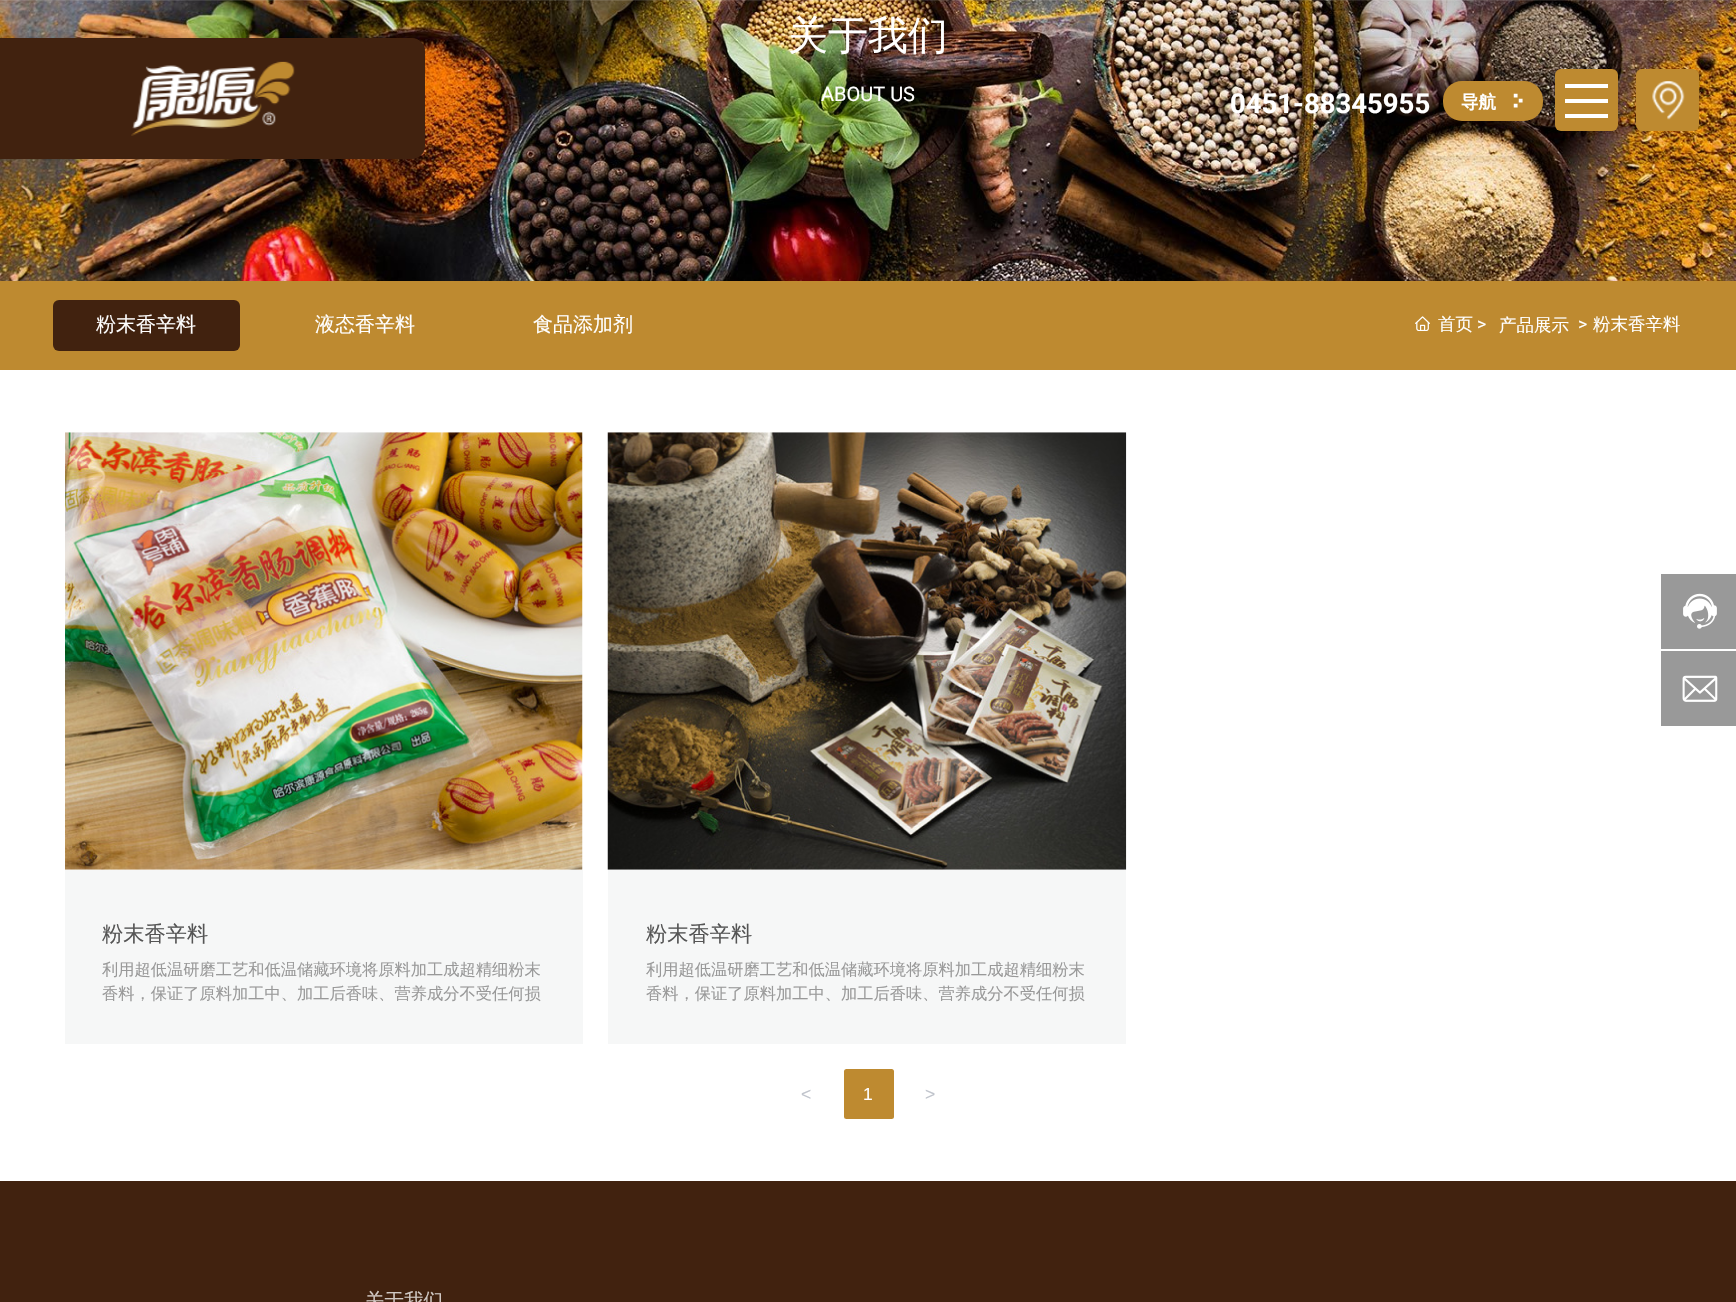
static SkFont makeFont(const char* family, int weight, float size, bool italic = false) {
  SkFontStyle style(weight, SkFontStyle::kNormal_Width,
    italic ? SkFontStyle::kItalic_Slant : SkFontStyle::kUpright_Slant);
  SkFont result(fontMgr->matchFamilyStyle(family, style), size);
  result.setSubpixel(true);
  return result;
}

static void text(SkCanvas* c, const char* s, float x, float y, const SkFont& font, SkColor color) {
  SkPaint ink(SkColor4f::FromColor(color));
  ink.setAntiAlias(true);
  c->drawString(s, x, y, font, ink);
}

static void box(SkCanvas* c, float l, float t, float r, float b, SkColor color) {
  SkPaint ink(SkColor4f::FromColor(color));
  ink.setAntiAlias(true);
  c->drawRect(SkRect::MakeLTRB(l, t, r, b), ink);
}

static void roundBox(SkCanvas* c, float l, float t, float r, float b, float radius, SkColor color) {
  SkPaint ink(SkColor4f::FromColor(color));
  ink.setAntiAlias(true);
  c->drawRoundRect(SkRect::MakeLTRB(l, t, r, b), radius, radius, ink);
}

static void picture(SkCanvas* c, const char* path, float l, float t, float r, float b) {
  auto image = SkImages::DeferredFromEncodedData(SkData::MakeFromFileName(path));
  c->drawImageRect(image, SkRect::MakeLTRB(l, t, r, b), SkSamplingOptions());
}

void draw(SkCanvas* c) {
  SkPaint paint;
  paint.setAntiAlias(true);
  c->clear(0xffffffff);
  picture(c, "img_01.png", 0, 0, 1736, 281);
  SkFont face1 = makeFont("WenQuanYi Zen Hei", 500, 40);
  text(c, "关于我们", 788, 49, face1, 0xffffffff);
  SkFont face2 = makeFont("Roboto", 400, 20);
  text(c, "ABOUT US", 821, 101, face2, 0xffffffff);
  box(c, 0, 0, 1736, 1, 0x1affffff);
  paint.setColor(0x1a000000);
  paint.setMaskFilter(SkMaskFilter::MakeBlur(kNormal_SkBlurStyle, 6));
  c->drawRoundRect(SkRect::MakeLTRB(0, 38, 425, 159), 13, 13, paint);
  paint.setMaskFilter(nullptr);
  paint.setColor(0xff41220f);
  c->drawPath(SkPathBuilder().moveTo(0, 38).lineTo(412, 38).cubicTo(419, 38, 425, 44, 425, 51).lineTo(425, 146).cubicTo(425, 153, 419, 159, 412, 159).lineTo(0, 159).close().detach(), paint);
  picture(c, "img_02.png", 131, 61, 295, 136);
  c->save();
  c->clipPath(SkPathBuilder(SkPathFillType::kEvenOdd).moveTo(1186, 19).lineTo(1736, 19).lineTo(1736, 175).lineTo(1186, 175).close().moveTo(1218, 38).lineTo(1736, 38).lineTo(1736, 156).lineTo(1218, 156).cubicTo(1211, 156, 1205, 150, 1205, 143).lineTo(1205, 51).cubicTo(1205, 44, 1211, 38, 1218, 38).close().detach(), true);
  paint.setColor(0x1a000000);
  paint.setMaskFilter(SkMaskFilter::MakeBlur(kNormal_SkBlurStyle, 6));
  c->drawRoundRect(SkRect::MakeLTRB(1205, 38, 1736, 156), 13, 13, paint);
  paint.setMaskFilter(nullptr);
  c->restore();
  SkFont face3 = makeFont("Roboto", 700, 27.5f);
  text(c, "0451-88345955", 1230, 113, face3, 0xffffffff);
  roundBox(c, 1443, 81, 1543, 121, 19, 0xffbe8a30);
  SkFont face4 = makeFont("WenQuanYi Zen Hei", 700, 17.5f);
  text(c, "导航", 1461, 108, face4, 0xffffffff);
  picture(c, "img_03.png", 1513, 93, 1523, 108);
  roundBox(c, 1555, 69, 1618, 131, 6, 0xffbe8a30);
  box(c, 1565, 84, 1608, 88, 0xffffffff);
  box(c, 1565, 99, 1608, 103, 0xffffffff);
  box(c, 1565, 114, 1608, 118, 0xffffffff);
  roundBox(c, 1636, 69, 1699, 131, 6, 0xffbe8a30);
  picture(c, "img_04.png", 1652, 81, 1685, 120);
  box(c, 0, 281, 1736, 370, 0xffbe8a30);
  roundBox(c, 53, 300, 240, 351, 6, 0xff41220f);
  SkFont face5 = makeFont("WenQuanYi Zen Hei", 500, 20);
  text(c, "粉末香辛料", 96, 331, face5, 0xffffffff);
  text(c, "液态香辛料", 315, 331, face5, 0xffffffff);
  text(c, "食品添加剂", 533, 331, face5, 0xffffffff);
  picture(c, "img_05.png", 1415, 316, 1430, 331);
  SkFont face6 = makeFont("WenQuanYi Zen Hei", 500, 17.5f);
  text(c, "首页", 1438, 330, face6, 0xffffffff);
  SkFont face7 = makeFont("Roboto", 400, 17.5f);
  text(c, ">", 1477, 330, face7, 0xffffffff);
  text(c, "产品展示", 1499, 331, face6, 0xffffffff);
  text(c, ">", 1578, 330, face7, 0xffffffff);
  text(c, "粉末香辛料", 1593, 330, face6, 0xffffffff);
  picture(c, "img_06.png", 65, 432, 583, 870);
  box(c, 65, 870, 583, 1044, 0xfff6f7f7);
  SkFont face8 = makeFont("WenQuanYi Zen Hei", 500, 21.25f);
  text(c, "粉末香辛料", 102, 941, face8, 0xff555555);
  SkFont face9 = makeFont("WenQuanYi Zen Hei", 500, 16.25f);
  text(c, "利用超低温研磨工艺和低温储藏环境将原料加工成超精细粉末", 102, 975, face9, 0xff999999);
  text(c, "香料，保证了原料加工中、加工后香味、营养成分不受任何损", 102, 999, face9, 0xff999999);
  picture(c, "img_07.png", 607, 432, 1127, 870);
  box(c, 608, 870, 1126, 1044, 0xfff6f7f7);
  text(c, "粉末香辛料", 646, 941, face8, 0xff555555);
  text(c, "利用超低温研磨工艺和低温储藏环境将原料加工成超精细粉末", 646, 975, face9, 0xff999999);
  text(c, "香料，保证了原料加工中、加工后香味、营养成分不受任何损", 646, 999, face9, 0xff999999);
  SkFont face10 = makeFont("Liberation Sans", 400, 17.5f);
  text(c, "<", 801, 1100, face10, 0xffc0c4cc);
  roundBox(c, 844, 1069, 894, 1119, 2.5f, 0xffbe8a30);
  text(c, "1", 863, 1100, face10, 0xffffffff);
  text(c, ">", 925, 1100, face10, 0xffc0c4cc);
  box(c, 0, 1181, 1736, 1302, 0xff41220f);
  SkFont face11 = makeFont("WenQuanYi Zen Hei", 500, 19.5f);
  text(c, "关于我们", 365, 1307, face11, 0xffd0c8c3);
  box(c, 1661, 574, 1736, 649, 0xff999999);
  picture(c, "img_08.png", 1683, 593, 1717, 629);
  box(c, 1661, 651, 1736, 726, 0xff999999);
  picture(c, "img_09.png", 1682, 675, 1718, 702);
}
